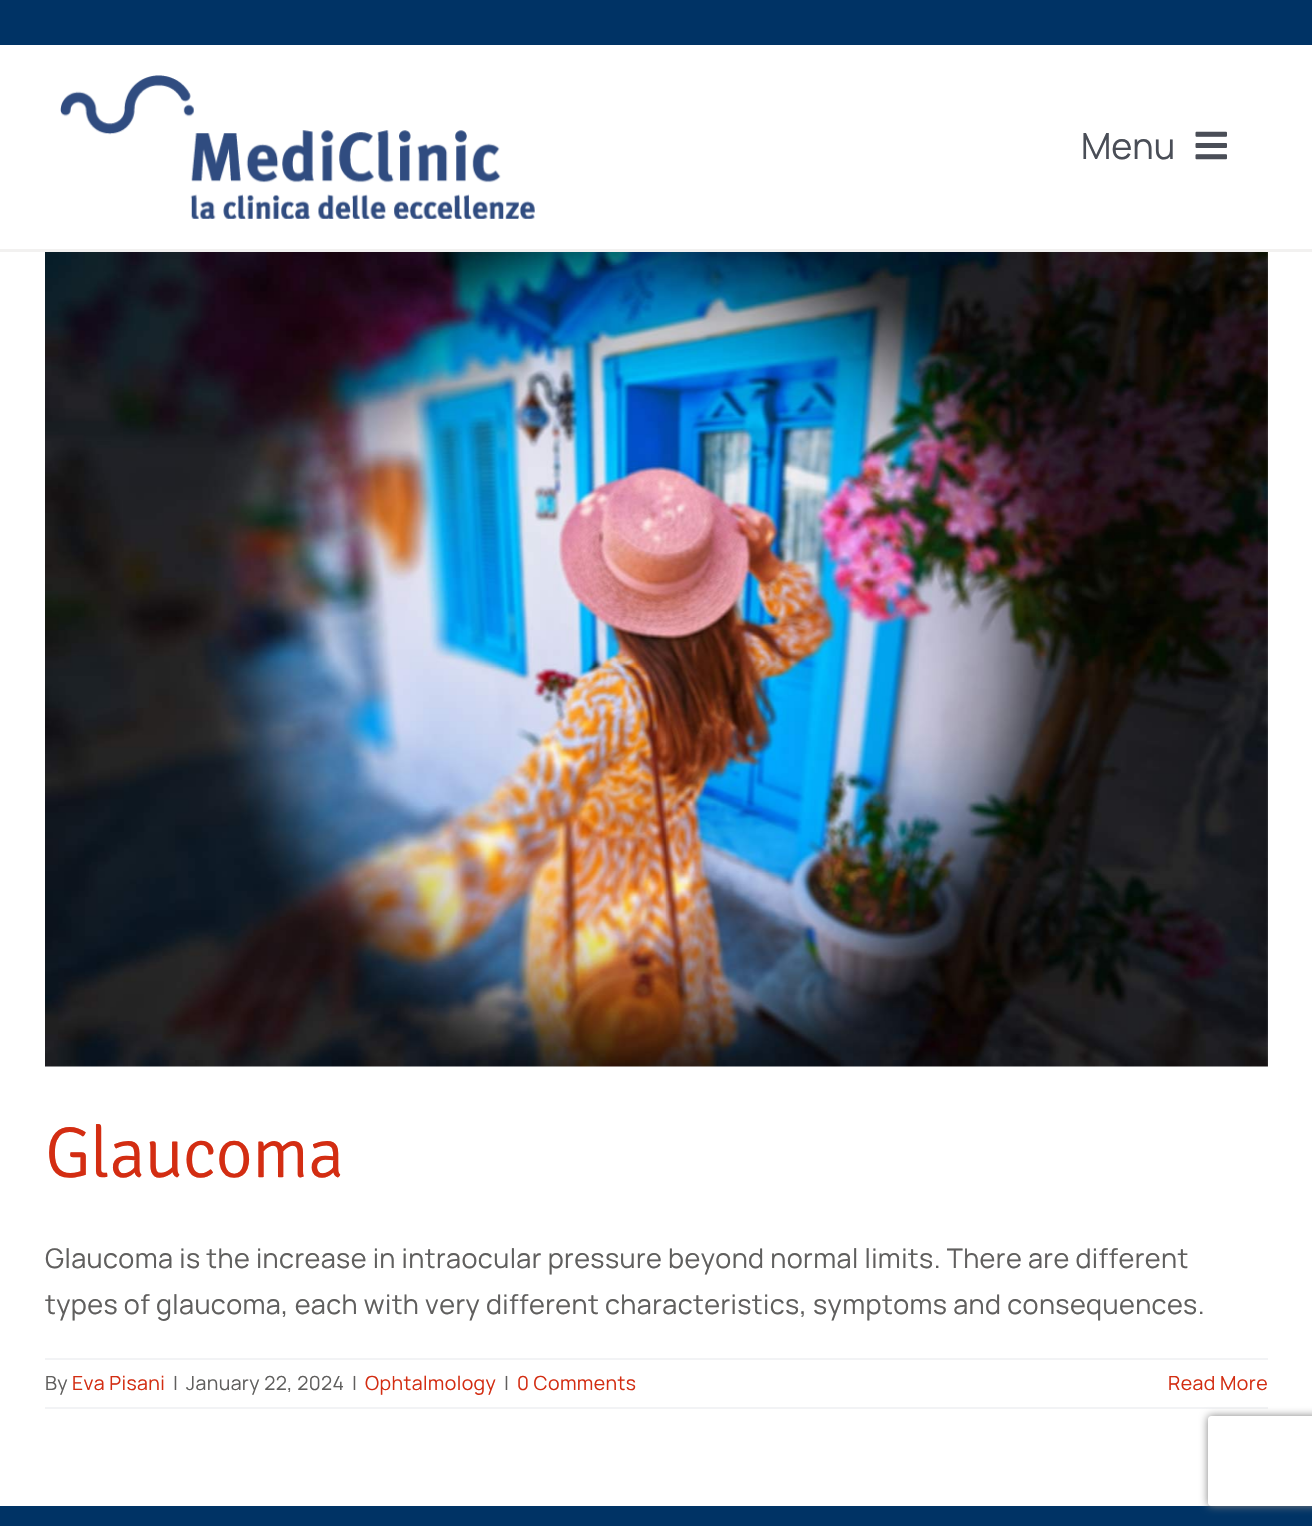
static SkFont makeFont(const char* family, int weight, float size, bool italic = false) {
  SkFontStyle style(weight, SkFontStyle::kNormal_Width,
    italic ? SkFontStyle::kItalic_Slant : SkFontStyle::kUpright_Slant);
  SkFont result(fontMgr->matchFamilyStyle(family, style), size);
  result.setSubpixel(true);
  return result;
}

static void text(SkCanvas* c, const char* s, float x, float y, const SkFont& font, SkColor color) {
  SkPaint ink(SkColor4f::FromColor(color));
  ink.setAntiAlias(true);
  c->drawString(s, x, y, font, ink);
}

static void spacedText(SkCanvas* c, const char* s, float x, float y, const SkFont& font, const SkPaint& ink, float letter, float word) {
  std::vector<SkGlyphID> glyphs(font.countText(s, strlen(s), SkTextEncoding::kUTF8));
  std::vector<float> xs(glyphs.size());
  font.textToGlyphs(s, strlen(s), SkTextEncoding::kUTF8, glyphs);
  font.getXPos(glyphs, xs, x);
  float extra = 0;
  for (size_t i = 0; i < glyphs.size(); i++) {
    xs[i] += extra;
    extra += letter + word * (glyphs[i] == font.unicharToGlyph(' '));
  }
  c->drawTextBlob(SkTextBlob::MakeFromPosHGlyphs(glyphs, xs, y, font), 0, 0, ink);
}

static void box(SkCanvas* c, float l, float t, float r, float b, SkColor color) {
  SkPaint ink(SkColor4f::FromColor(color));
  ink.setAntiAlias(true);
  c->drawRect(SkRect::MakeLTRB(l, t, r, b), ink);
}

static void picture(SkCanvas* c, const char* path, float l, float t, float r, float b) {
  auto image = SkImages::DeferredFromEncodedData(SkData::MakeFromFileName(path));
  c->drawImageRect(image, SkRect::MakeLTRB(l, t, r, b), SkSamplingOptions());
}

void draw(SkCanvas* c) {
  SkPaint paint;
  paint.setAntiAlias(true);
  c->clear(0xffffffff);
  box(c, 0, 249, 1312, 252, 0xfff2f1f0);
  box(c, 0, 0, 1312, 45, 0xff003365);
  picture(c, "img_01.png", 60, 75, 535, 219);
  SkFont face1 = makeFont("Manrope", 400, 36);
  text(c, "Menu", 1081, 159, face1, 0xff4a4e57);
  picture(c, "img_02.png", 1195, 131, 1227, 160);
  picture(c, "img_03.png", 45, 252, 1268, 1067);
  SkFont face2 = makeFont("Signika", 300, 72);
  paint.setColor(0xffd32d12);
  spacedText(c, "Glaucoma", 45, 1177, face2, paint, -1, 0);
  SkFont face3 = makeFont("Manrope", 400, 27);
  paint.setColor(0xff605f5e);
  spacedText(c, "Glaucoma is the increase in intraocular pressure beyond normal limits. There are different", 45, 1268, face3, paint, 0.4f, 0);
  spacedText(c, "types of glaucoma, each with very different characteristics, symptoms and consequences.", 45, 1314, face3, paint, 0.4f, 0);
  box(c, 45, 1358, 1268, 1360, 0xfff2f3f5);
  box(c, 45, 1407, 1268, 1409, 0xfff2f3f5);
  SkFont face4 = makeFont("Manrope", 400, 19.5f);
  spacedText(c, "By", 45, 1390, face4, paint, 0.4f, 0);
  paint.setColor(0xffd32d12);
  spacedText(c, "Eva Pisani", 72, 1390, face4, paint, 0.4f, 0);
  paint.setColor(0xff605f5e);
  spacedText(c, "|", 173, 1390, face4, paint, 0.4f, 0);
  spacedText(c, "January 22, 2024", 186, 1390, face4, paint, 0.4f, 0);
  spacedText(c, "|", 352, 1390, face4, paint, 0.4f, 0);
  paint.setColor(0xffd32d12);
  spacedText(c, "Ophtalmology", 365, 1390, face4, paint, 0.4f, 0);
  paint.setColor(0xff605f5e);
  spacedText(c, "|", 504, 1390, face4, paint, 0.4f, 0);
  paint.setColor(0xffd32d12);
  spacedText(c, "0 Comments", 517, 1390, face4, paint, 0.4f, 0);
  spacedText(c, "Read More", 1168, 1390, face4, paint, 0.4f, 0);
  box(c, 0, 1506, 1312, 1526, 0xff003365);
  c->save();
  c->clipPath(SkPathBuilder(SkPathFillType::kEvenOdd).moveTo(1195, 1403).lineTo(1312, 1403).lineTo(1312, 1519).lineTo(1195, 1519).close().moveTo(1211, 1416).lineTo(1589, 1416).cubicTo(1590.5f, 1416, 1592, 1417.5f, 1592, 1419).lineTo(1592, 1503).cubicTo(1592, 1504.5f, 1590.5f, 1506, 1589, 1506).lineTo(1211, 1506).cubicTo(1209.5f, 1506, 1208, 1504.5f, 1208, 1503).lineTo(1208, 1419).cubicTo(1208, 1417.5f, 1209.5f, 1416, 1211, 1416).close().detach(), true);
  paint.setColor(0xff808080);
  paint.setMaskFilter(SkMaskFilter::MakeBlur(kNormal_SkBlurStyle, 4));
  c->drawRoundRect(SkRect::MakeLTRB(1208, 1416, 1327, 1506), 3, 3, paint);
  paint.setMaskFilter(nullptr);
  c->restore();
}
